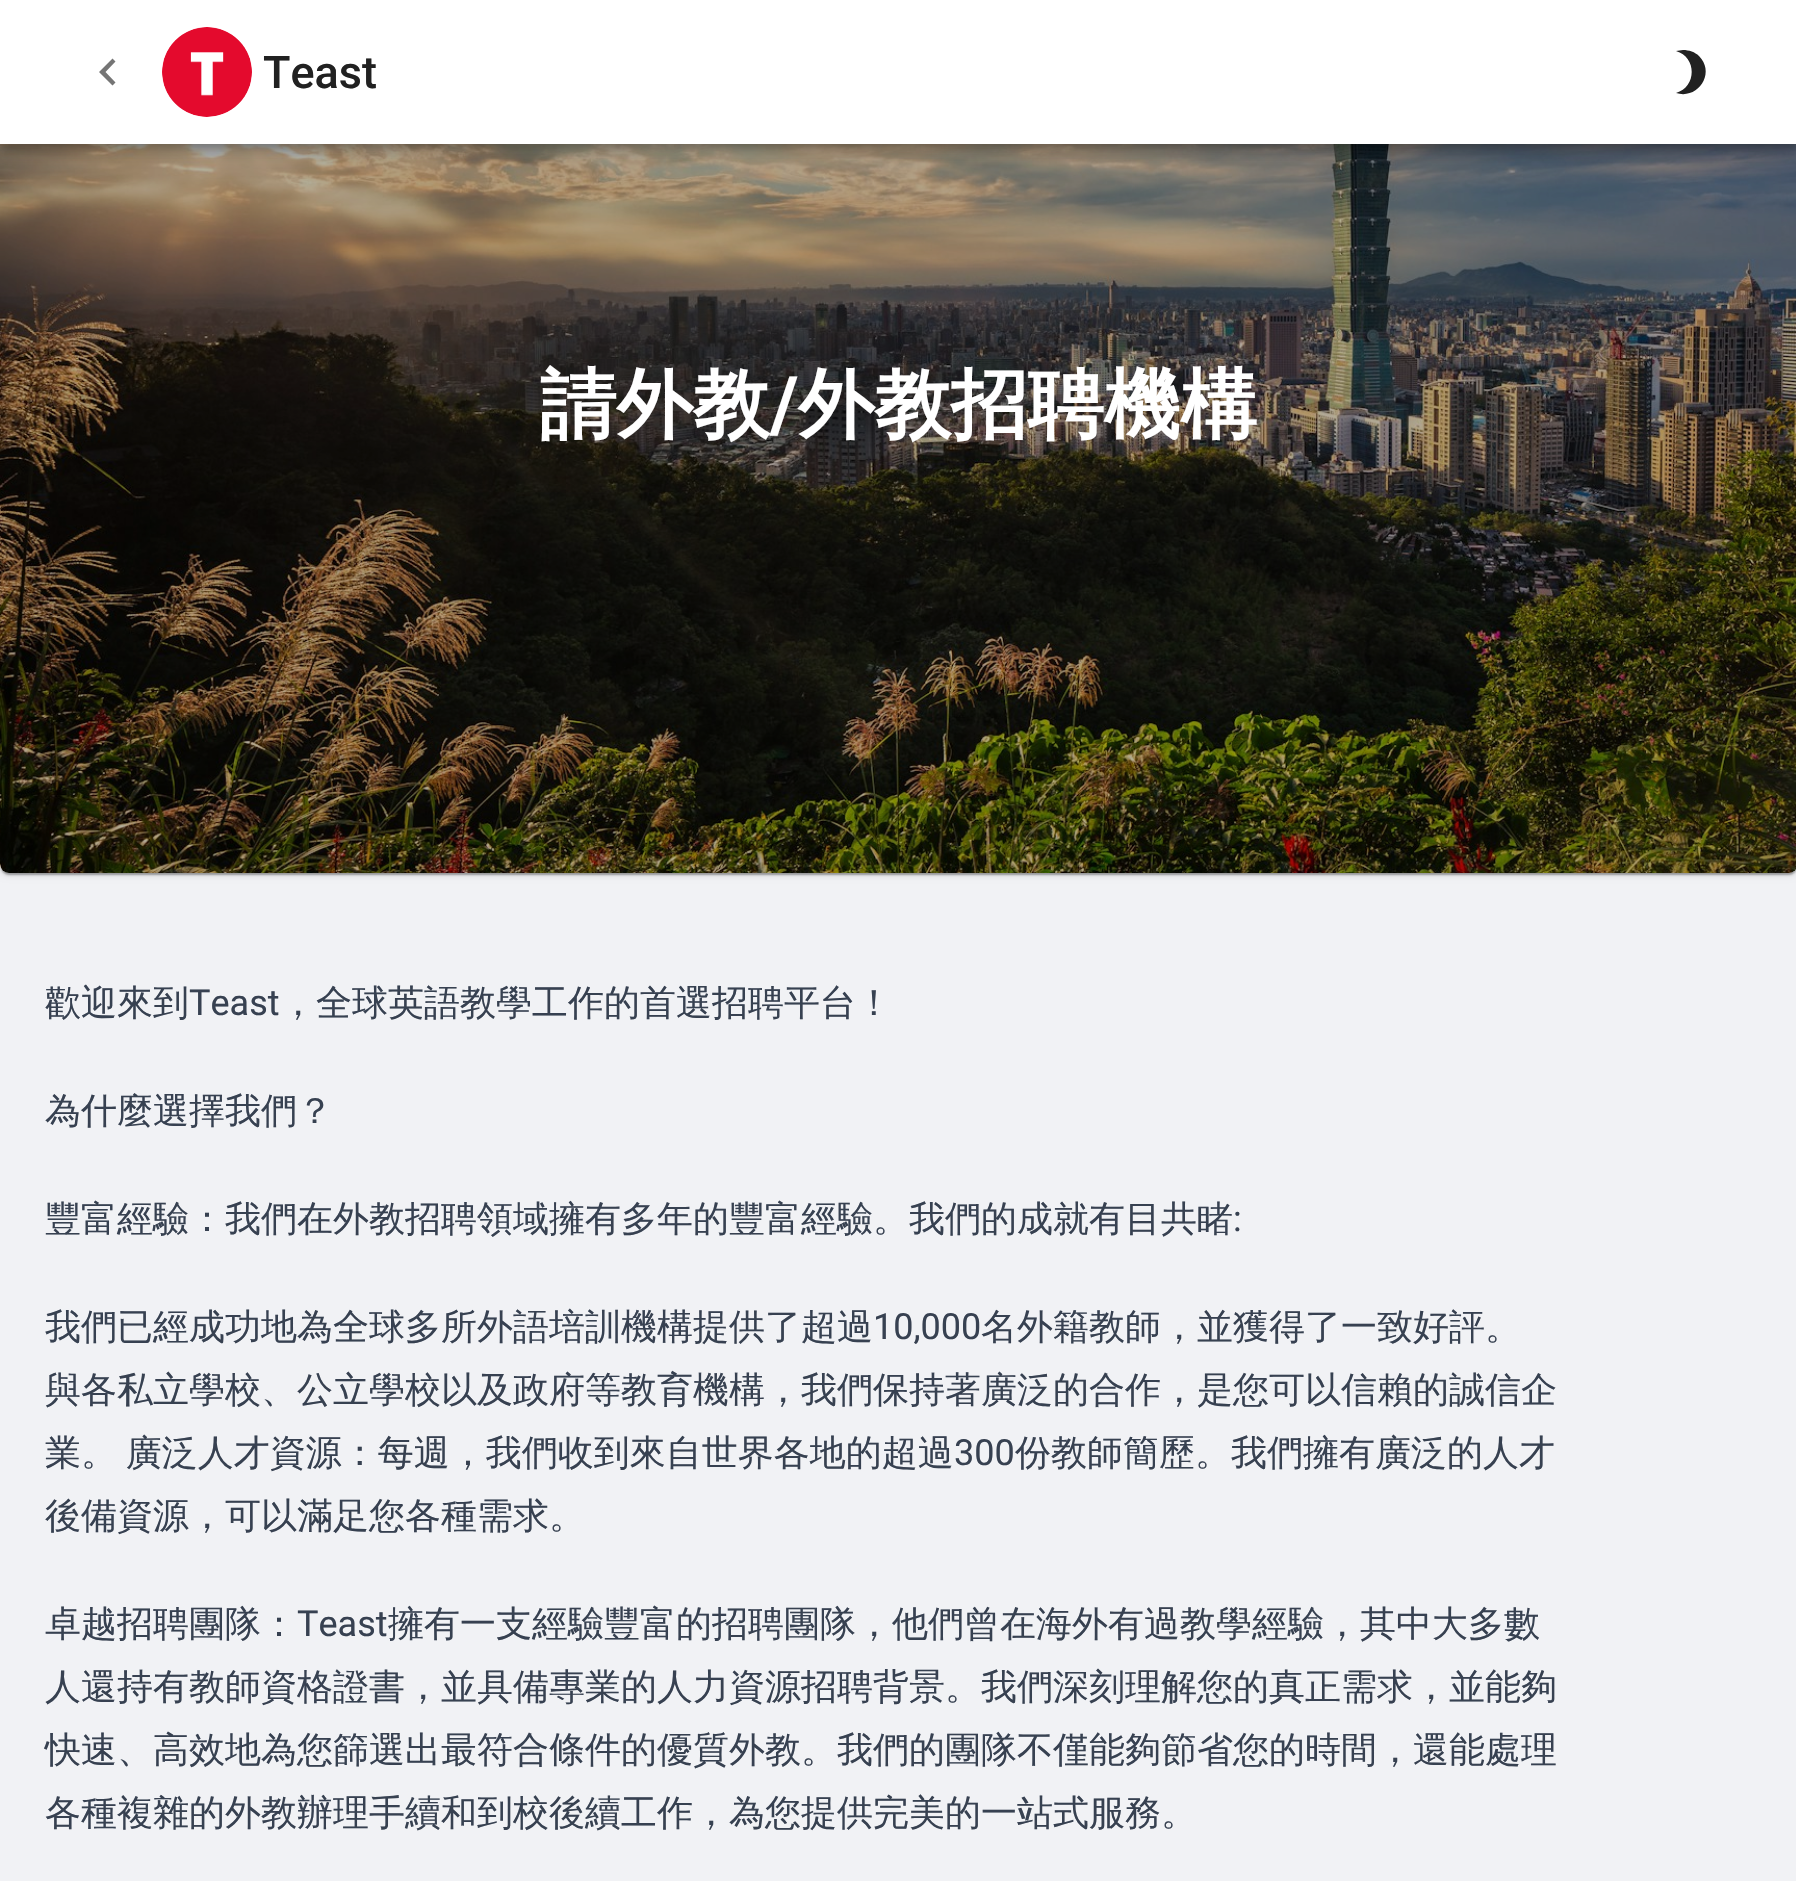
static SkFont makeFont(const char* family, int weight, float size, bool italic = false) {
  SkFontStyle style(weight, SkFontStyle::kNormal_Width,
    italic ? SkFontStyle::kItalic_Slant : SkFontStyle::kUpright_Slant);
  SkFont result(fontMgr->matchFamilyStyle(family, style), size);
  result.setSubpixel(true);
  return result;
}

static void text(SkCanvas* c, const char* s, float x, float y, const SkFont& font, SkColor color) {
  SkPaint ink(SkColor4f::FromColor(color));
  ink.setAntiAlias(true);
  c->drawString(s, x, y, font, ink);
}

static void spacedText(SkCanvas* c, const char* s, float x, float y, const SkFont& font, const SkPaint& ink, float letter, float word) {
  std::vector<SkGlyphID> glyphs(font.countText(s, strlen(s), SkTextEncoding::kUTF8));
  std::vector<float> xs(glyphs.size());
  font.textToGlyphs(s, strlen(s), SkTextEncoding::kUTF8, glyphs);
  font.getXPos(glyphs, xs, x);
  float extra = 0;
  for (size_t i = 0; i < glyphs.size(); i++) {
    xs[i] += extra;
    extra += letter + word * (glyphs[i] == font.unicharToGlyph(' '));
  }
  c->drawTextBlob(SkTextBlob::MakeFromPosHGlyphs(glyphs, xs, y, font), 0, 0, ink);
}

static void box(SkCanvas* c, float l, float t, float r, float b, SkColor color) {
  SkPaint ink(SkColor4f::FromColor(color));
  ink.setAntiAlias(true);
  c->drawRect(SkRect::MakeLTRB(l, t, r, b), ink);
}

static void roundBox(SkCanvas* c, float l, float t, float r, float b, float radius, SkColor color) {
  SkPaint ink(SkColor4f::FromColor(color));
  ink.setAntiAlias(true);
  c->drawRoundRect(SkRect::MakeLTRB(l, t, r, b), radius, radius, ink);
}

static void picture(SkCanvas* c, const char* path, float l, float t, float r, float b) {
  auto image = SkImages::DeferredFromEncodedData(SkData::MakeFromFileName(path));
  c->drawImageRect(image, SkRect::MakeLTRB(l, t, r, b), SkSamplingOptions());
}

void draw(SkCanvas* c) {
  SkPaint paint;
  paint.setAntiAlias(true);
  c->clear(0xfff1f2f5);
  paint.setColor(0x1f000000);
  paint.setMaskFilter(SkMaskFilter::MakeBlur(kNormal_SkBlurStyle, 3.5f));
  c->drawRoundRect(SkRect::MakeLTRB(0, -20, 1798, 875), 9, 9, paint);
  paint.setMaskFilter(nullptr);
  paint.setColor(0x24000000);
  paint.setMaskFilter(SkMaskFilter::MakeBlur(kNormal_SkBlurStyle, 1));
  c->drawRoundRect(SkRect::MakeLTRB(0, -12, 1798, 875), 9, 9, paint);
  paint.setMaskFilter(nullptr);
  paint.setColor(0x33000000);
  paint.setMaskFilter(SkMaskFilter::MakeBlur(kNormal_SkBlurStyle, 1));
  c->drawRoundRect(SkRect::MakeLTRB(2, -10, 1796, 875), 7, 7, paint);
  paint.setMaskFilter(nullptr);
  roundBox(c, 0, -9, 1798, 873, 9, 0xffffffff);
  picture(c, "img_02.png", 0, 144, 1796, 873);
  roundBox(c, 0, -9, 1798, 873, 9, 0x4d000000);
  paint.setColor(0x1f000000);
  paint.setMaskFilter(SkMaskFilter::MakeBlur(kNormal_SkBlurStyle, 11));
  c->drawRect(SkRect::MakeLTRB(0, 2, 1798, 146), paint);
  paint.setMaskFilter(nullptr);
  paint.setColor(0x24000000);
  paint.setMaskFilter(SkMaskFilter::MakeBlur(kNormal_SkBlurStyle, 5.5f));
  c->drawRect(SkRect::MakeLTRB(0, 9, 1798, 153), paint);
  paint.setMaskFilter(nullptr);
  paint.setColor(0x33000000);
  paint.setMaskFilter(SkMaskFilter::MakeBlur(kNormal_SkBlurStyle, 4.5f));
  c->drawRect(SkRect::MakeLTRB(2, 7, 1796, 146), paint);
  paint.setMaskFilter(nullptr);
  box(c, 0, 0, 1796, 144, 0xffffffff);
  paint.setColor(0xff757575);
  c->drawPath(SkPathBuilder().moveTo(115.5f, 61.5f).lineTo(112.5f, 58.5f).lineTo(99, 72).lineTo(112.5f, 85.5f).lineTo(115.5f, 82.5f).lineTo(105.5f, 72).close().detach(), paint);
  picture(c, "img_01.png", 162, 27, 252, 117);
  SkFont face1 = makeFont("Roboto", 500, 45);
  text(c, "Teast", 263, 88, face1, 0xff212121);
  paint.setColor(0xff212121);
  c->drawPath(SkPathBuilder().moveTo(1683, 50).lineTo(1676, 51).cubicTo(1697, 57, 1697, 87, 1676, 93).cubicTo(1698, 100, 1716, 73, 1699, 56).cubicTo(1695, 52, 1689, 50, 1683, 50).detach(), paint);
  SkFont face2 = makeFont("WenQuanYi Zen Hei", 700, 76.5f);
  text(c, "請外教", 540, 431, face2, 0xffffffff);
  SkFont face3 = makeFont("Roboto", 700, 76.5f);
  text(c, "/", 770, 431, face3, 0xffffffff);
  text(c, "外教招聘機構", 798, 431, face2, 0xffffffff);
  SkFont face4 = makeFont("WenQuanYi Zen Hei", 500, 36);
  text(c, "歡迎來到", 45, 1015, face4, 0xff374151);
  SkFont face5 = makeFont("Roboto", 400, 36);
  text(c, "Teast", 189, 1015, face5, 0xff374151);
  text(c, "，全球英語教學工作的首選招聘平台！", 280, 1015, face4, 0xff374151);
  text(c, "為什麼選擇我們？", 45, 1123, face4, 0xff374151);
  text(c, "豐富經驗：我們在外教招聘領域擁有多年的豐富經驗。我們的成就有目共睹", 45, 1231, face4, 0xff374151);
  text(c, ":", 1233, 1231, face5, 0xff374151);
  text(c, "我們已經成功地為全球多所外語培訓機構提供了超過", 45, 1339, face4, 0xff374151);
  text(c, "10,000", 873, 1339, face5, 0xff374151);
  text(c, "名外籍教師，並獲得了一致好評。", 981, 1339, face4, 0xff374151);
  text(c, "與各私立學校、公立學校以及政府等教育機構，我們保持著廣泛的合作，是您可以信賴的誠信企", 45, 1402, face4, 0xff374151);
  paint.setColor(0xff374151);
  spacedText(c, "業。 廣泛人才資源：每週，我們收到來自世界各地的超過", 45, 1465, face4, paint, 0, -2);
  text(c, "300", 954, 1465, face5, 0xff374151);
  text(c, "份教師簡歷。我們擁有廣泛的人才", 1015, 1465, face4, 0xff374151);
  text(c, "後備資源，可以滿足您各種需求。", 45, 1528, face4, 0xff374151);
  text(c, "卓越招聘團隊：", 45, 1636, face4, 0xff374151);
  text(c, "Teast", 297, 1636, face5, 0xff374151);
  text(c, "擁有一支經驗豐富的招聘團隊，他們曾在海外有過教學經驗，其中大多數", 388, 1636, face4, 0xff374151);
  text(c, "人還持有教師資格證書，並具備專業的人力資源招聘背景。我們深刻理解您的真正需求，並能夠", 45, 1699, face4, 0xff374151);
  text(c, "快速、高效地為您篩選出最符合條件的優質外教。我們的團隊不僅能夠節省您的時間，還能處理", 45, 1762, face4, 0xff374151);
  text(c, "各種複雜的外教辦理手續和到校後續工作，為您提供完美的一站式服務。", 45, 1825, face4, 0xff374151);
}
